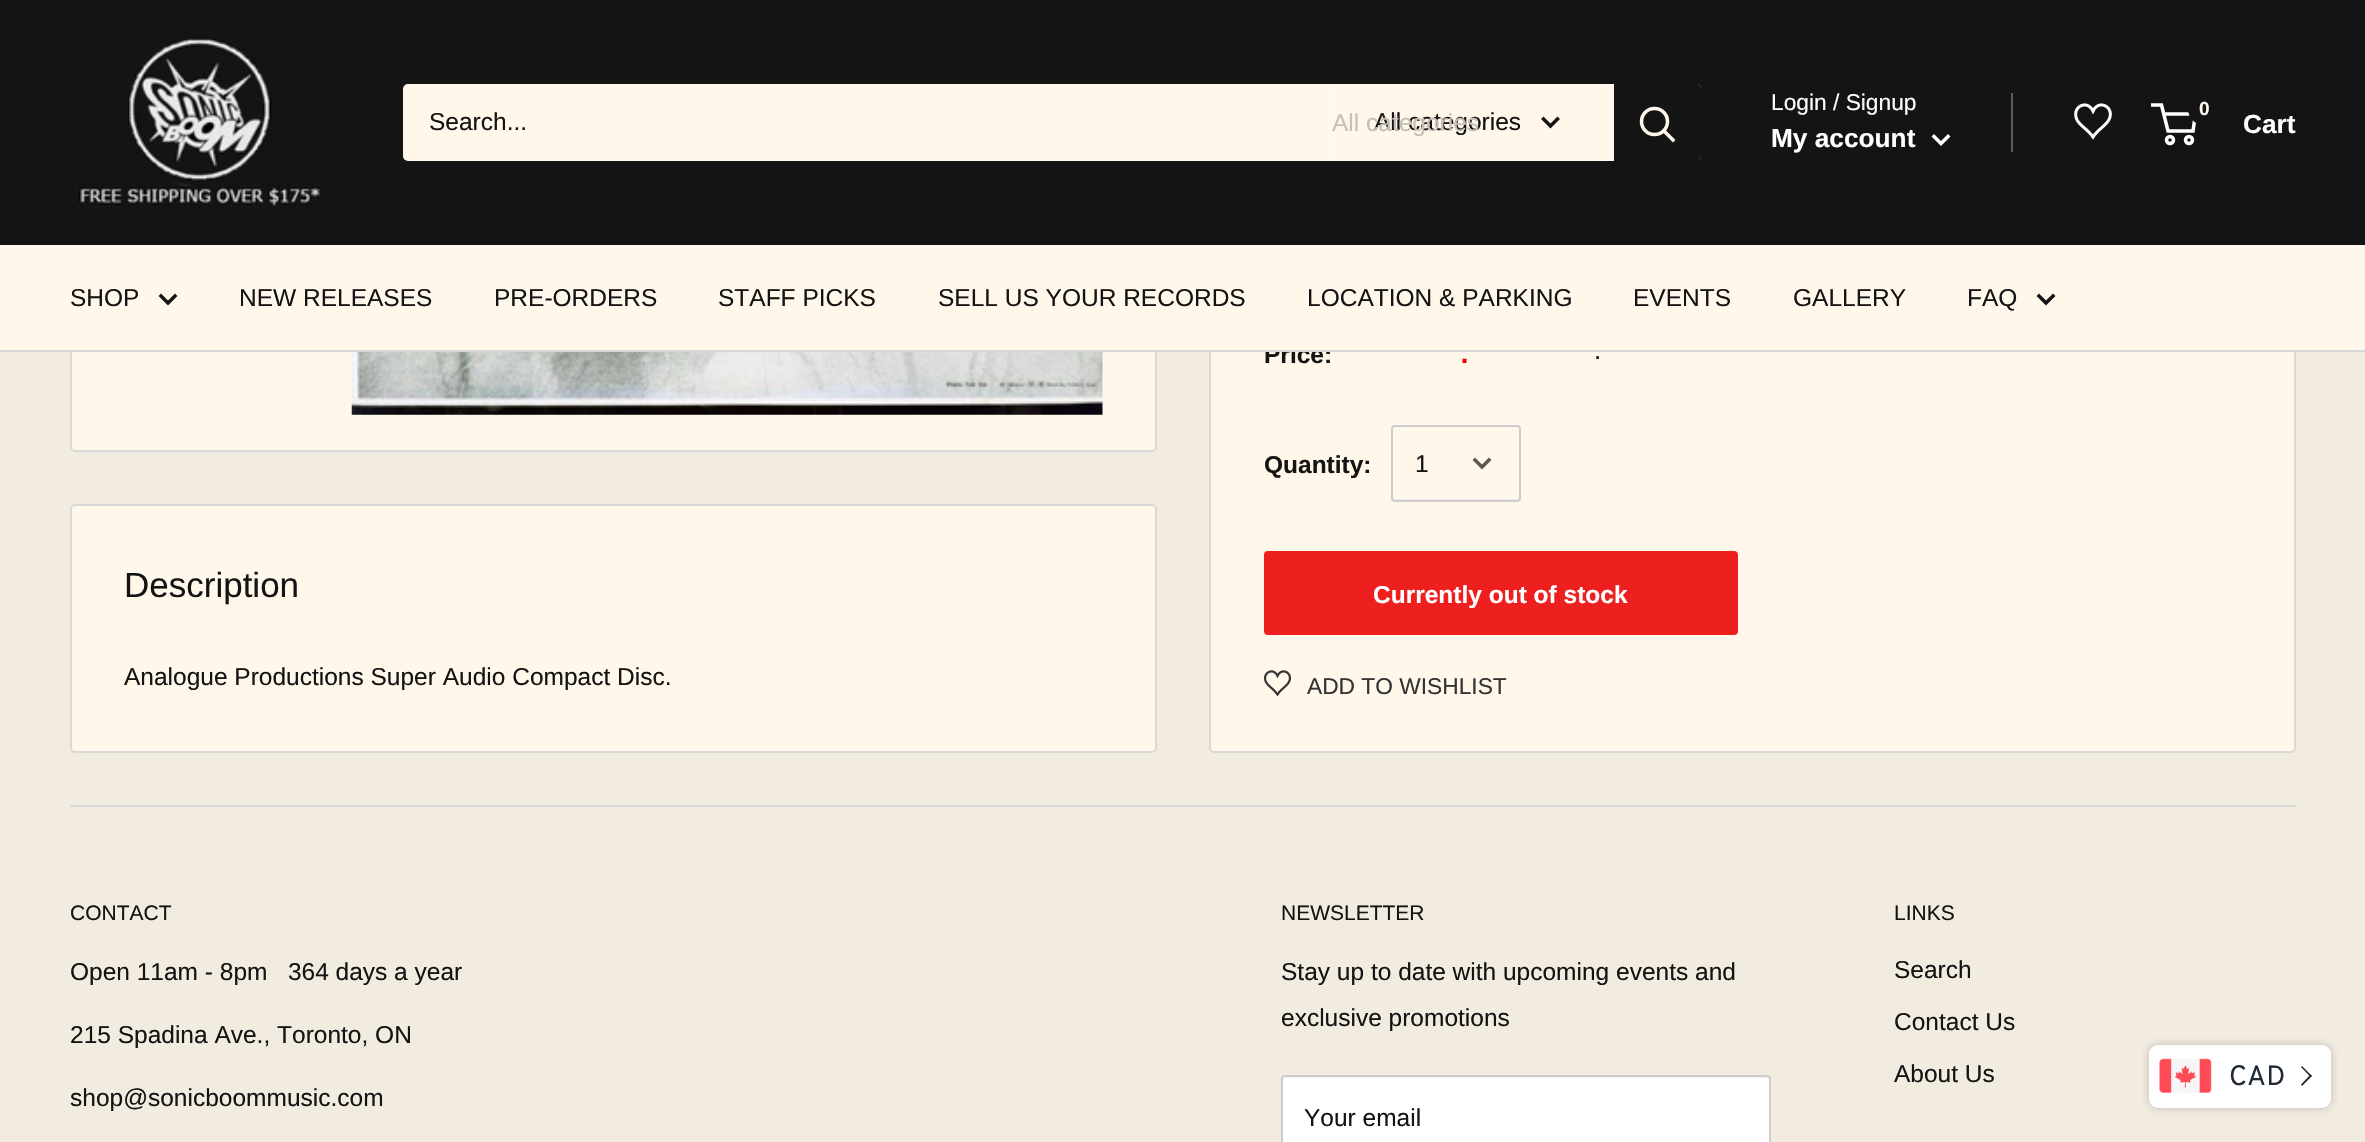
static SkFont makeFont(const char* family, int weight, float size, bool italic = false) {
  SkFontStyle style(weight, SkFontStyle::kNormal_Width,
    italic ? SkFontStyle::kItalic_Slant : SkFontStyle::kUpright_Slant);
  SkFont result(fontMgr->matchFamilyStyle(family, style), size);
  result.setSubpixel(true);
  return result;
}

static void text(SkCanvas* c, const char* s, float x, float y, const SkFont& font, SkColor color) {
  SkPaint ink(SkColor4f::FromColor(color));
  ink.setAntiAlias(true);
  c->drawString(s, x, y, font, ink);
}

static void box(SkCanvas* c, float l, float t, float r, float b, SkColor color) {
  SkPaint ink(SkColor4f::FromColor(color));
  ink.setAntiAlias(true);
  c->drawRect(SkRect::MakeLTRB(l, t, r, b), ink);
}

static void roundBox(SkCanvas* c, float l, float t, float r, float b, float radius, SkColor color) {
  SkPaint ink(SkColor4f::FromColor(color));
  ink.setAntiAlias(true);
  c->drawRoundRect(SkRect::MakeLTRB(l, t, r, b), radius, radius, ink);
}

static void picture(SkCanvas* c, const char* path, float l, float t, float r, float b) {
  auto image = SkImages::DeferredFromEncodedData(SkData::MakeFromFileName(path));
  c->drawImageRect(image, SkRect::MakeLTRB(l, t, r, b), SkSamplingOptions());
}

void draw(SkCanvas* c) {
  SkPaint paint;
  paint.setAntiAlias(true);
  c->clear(0xfff2ebdf);
  paint.setColor(0xfffff7ea);
  c->drawRoundRect(SkRect::MakeLTRB(71, -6, 1156, 451), 4, 4, paint);
  paint.setStyle(SkPaint::kStroke_Style);
  paint.setStrokeWidth(2);
  paint.setColor(0xffd9d9d9);
  c->drawRoundRect(SkRect::MakeLTRB(71, -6, 1156, 451), 4, 4, paint);
  paint.setStyle(SkPaint::kFill_Style);
  paint.setColor(0xfffff7ea);
  c->drawRoundRect(SkRect::MakeLTRB(1210, -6, 2295, 752), 4, 4, paint);
  paint.setStyle(SkPaint::kStroke_Style);
  paint.setColor(0xffd9d9d9);
  c->drawRoundRect(SkRect::MakeLTRB(1210, -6, 2295, 752), 4, 4, paint);
  box(c, 0, 0, 2365, 245, 0xff141414);
  picture(c, "img_01.png", 77, 37, 322, 208);
  roundBox(c, 403, 84, 1701, 161, 5, 0xfffff7ea);
  SkFont face1 = makeFont("Liberation Sans", 400, 24.5f);
  text(c, "Search...", 429, 130, face1, 0xff141414);
  box(c, 1328, 84, 1330, 161, 0xfffff9f0);
  text(c, "All categories", 1374, 130, face1, 0xff141414);
  paint.setStrokeWidth(3.5f);
  paint.setStrokeCap(SkPaint::kSquare_Cap);
  paint.setColor(0xff141414);
  c->drawPath(SkPathBuilder().moveTo(1557.5f, 119).lineTo(1550.5f, 126).lineTo(1543.5f, 119).detach(), paint);
  text(c, "All categories", 1332, 131, face1, 0xffc6c0b6);
  paint.setStyle(SkPaint::kFill_Style);
  c->drawPath(SkPathBuilder().moveTo(1614, 84).lineTo(1696, 84).cubicTo(1699, 84, 1701, 86, 1701, 89).lineTo(1701, 156).cubicTo(1701, 159, 1699, 161, 1696, 161).lineTo(1614, 161).close().detach(), paint);
  paint.setStyle(SkPaint::kStroke_Style);
  paint.setColor(0xfffff7ea);
  c->drawPath(SkPathBuilder().moveTo(1673, 140).lineTo(1664, 131).detach(), paint);
  paint.setStrokeCap(SkPaint::kButt_Cap);
  c->drawCircle(1654.5f, 121.5f, 13, paint);
  SkFont face2 = makeFont("Liberation Sans", 400, 22.75f);
  text(c, "Login / Signup", 1771, 110, face2, 0xffffffff);
  box(c, 2011, 93, 2013, 152, 0xff5b5b5b);
  SkFont face3 = makeFont("Liberation Sans", 700, 26.25f);
  text(c, "My account", 1771, 147, face3, 0xffffffff);
  paint.setStrokeCap(SkPaint::kSquare_Cap);
  paint.setColor(0xffffffff);
  c->drawPath(SkPathBuilder().moveTo(1948, 136.5f).lineTo(1941, 143.5f).lineTo(1934, 136.5f).detach(), paint);
  picture(c, "img_02.png", 2074, 103, 2112, 140);
  paint.setStrokeCap(SkPaint::kButt_Cap);
  c->drawCircle(2170, 140, 3.5f, paint);
  c->drawCircle(2189, 140, 3.5f, paint);
  c->drawPath(SkPathBuilder().moveTo(2163.5f, 114).lineTo(2195.5f, 114).lineTo(2193, 131).lineTo(2168, 131).lineTo(2161.5f, 105).lineTo(2151, 105).detach(), paint);
  paint.setStyle(SkPaint::kFill_Style);
  paint.setColor(0xff141414);
  c->drawCircle(2205.5f, 108.5f, 17.5f, paint);
  SkFont face4 = makeFont("Liberation Sans", 700, 19);
  text(c, "0", 2199, 115, face4, 0xfffff7ea);
  text(c, "Cart", 2243, 133, face3, 0xffffffff);
  SkFont face5 = makeFont("Liberation Sans", 700, 24.5f);
  text(c, "Price:", 1264, 363, face5, 0xff141414);
  box(c, 0, 245, 2365, 350, 0xfffff7ea);
  box(c, 0, 350, 2365, 352, 0xffd9d9d9);
  text(c, "SHOP", 70, 306, face1, 0xff141414);
  paint.setStyle(SkPaint::kStroke_Style);
  paint.setStrokeCap(SkPaint::kSquare_Cap);
  c->drawPath(SkPathBuilder().moveTo(175, 296).lineTo(168, 303).lineTo(161, 296).detach(), paint);
  text(c, "NEW RELEASES", 239, 306, face1, 0xff141414);
  text(c, "PRE-ORDERS", 494, 306, face1, 0xff141414);
  text(c, "STAFF PICKS", 718, 306, face1, 0xff141414);
  text(c, "SELL US YOUR RECORDS", 938, 306, face1, 0xff141414);
  text(c, "LOCATION & PARKING", 1307, 306, face1, 0xff141414);
  text(c, "EVENTS", 1633, 306, face1, 0xff141414);
  text(c, "GALLERY", 1793, 306, face1, 0xff141414);
  text(c, "FAQ", 1967, 306, face1, 0xff141414);
  c->drawPath(SkPathBuilder().moveTo(2053, 296).lineTo(2046, 303).lineTo(2039, 296).detach(), paint);
  picture(c, "img_03.png", 351, 352, 1103, 415);
  paint.setStyle(SkPaint::kFill_Style);
  paint.setColor(0xfffff7ea);
  c->drawRoundRect(SkRect::MakeLTRB(71, 505, 1156, 752), 4, 4, paint);
  paint.setStyle(SkPaint::kStroke_Style);
  paint.setStrokeWidth(2);
  paint.setStrokeCap(SkPaint::kButt_Cap);
  paint.setColor(0xffd9d9d9);
  c->drawRoundRect(SkRect::MakeLTRB(71, 505, 1156, 752), 4, 4, paint);
  SkFont face6 = makeFont("Liberation Sans", 400, 35);
  text(c, "Description", 124, 597, face6, 0xff141414);
  text(c, "Analogue Productions Super Audio Compact Disc.", 124, 685, face1, 0xff141414);
  SkFont face7 = makeFont("Liberation Sans", 400, 26.25f);
  text(c, ".", 1594, 359, face7, 0xff141414);
  SkFont face8 = makeFont("Liberation Sans", 400, 40);
  text(c, ".", 1459, 363, face8, 0xffee0000);
  text(c, "Quantity:", 1264, 473, face5, 0xff141414);
  paint.setStyle(SkPaint::kFill_Style);
  paint.setColor(0xfff0eae1);
  c->drawPath(SkPathBuilder().moveTo(1393, 497).lineTo(1393, 499).cubicTo(1393, 500, 1394, 501, 1395, 501).lineTo(1517, 501).cubicTo(1518, 501, 1519, 500, 1519, 499).lineTo(1519, 497).cubicTo(1519, 498, 1518, 499, 1517, 499).lineTo(1395, 499).lineTo(1393, 498).close().detach(), paint);
  paint.setStyle(SkPaint::kStroke_Style);
  paint.setColor(0xffcccccc);
  c->drawRoundRect(SkRect::MakeLTRB(1392, 426, 1520, 501), 3, 3, paint);
  text(c, "1", 1415, 472, face1, 0xff141414);
  paint.setStrokeWidth(3.5f);
  paint.setStrokeCap(SkPaint::kSquare_Cap);
  paint.setColor(0xff5b5854);
  c->drawPath(SkPathBuilder().moveTo(1489, 460).lineTo(1482, 467).lineTo(1475, 460).detach(), paint);
  paint.setStyle(SkPaint::kFill_Style);
  paint.setColor(0xffed1f1f);
  c->drawRoundRect(SkRect::MakeLTRB(1265, 552, 1737, 634), 3, 3, paint);
  paint.setStyle(SkPaint::kStroke_Style);
  paint.setStrokeWidth(2);
  paint.setStrokeCap(SkPaint::kButt_Cap);
  c->drawRoundRect(SkRect::MakeLTRB(1265, 552, 1737, 634), 3, 3, paint);
  text(c, "Currently out of stock", 1373, 603, face5, 0xffffffff);
  picture(c, "img_04.png", 1264, 670, 1291, 697);
  text(c, "ADD TO WISHLIST", 1307, 694, face2, 0xff333333);
  box(c, 70, 805, 2296, 807, 0xffd9d9d9);
  SkFont face9 = makeFont("Liberation Sans", 400, 21);
  text(c, "CONTACT", 70, 920, face9, 0xff141414);
  text(c, "Open 11am - 8pm   364 days a year", 70, 980, face1, 0xff141414);
  text(c, "215 Spadina Ave., Toronto, ON", 70, 1043, face1, 0xff141414);
  text(c, "shop@sonicboommusic.com", 70, 1106, face1, 0xff141414);
  text(c, "NEWSLETTER", 1281, 920, face9, 0xff141414);
  text(c, "Stay up to date with upcoming events and", 1281, 980, face1, 0xff141414);
  text(c, "exclusive promotions", 1281, 1026, face1, 0xff141414);
  roundBox(c, 1281, 1075, 1771, 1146, 4, 0xffffffff);
  paint.setStyle(SkPaint::kFill_Style);
  paint.setColor(0xfff2f2f2);
  c->drawPath(SkPathBuilder().moveTo(1284, 1078).lineTo(1768, 1078).lineTo(1769, 1080).cubicTo(1769, 1078, 1769, 1076, 1767, 1076).lineTo(1285, 1076).cubicTo(1283, 1076, 1283, 1078, 1283, 1080).close().detach(), paint);
  paint.setStyle(SkPaint::kStroke_Style);
  paint.setColor(0xffcccccc);
  c->drawRoundRect(SkRect::MakeLTRB(1282, 1076, 1770, 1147), 3, 3, paint);
  text(c, "Your email", 1304, 1126, face1, 0xff141414);
  text(c, "LINKS", 1894, 920, face9, 0xff141414);
  text(c, "Search", 1894, 978, face1, 0xff141414);
  text(c, "Contact Us", 1894, 1030, face1, 0xff141414);
  text(c, "About Us", 1894, 1082, face1, 0xff141414);
  paint.setStyle(SkPaint::kFill_Style);
  paint.setColor(0x40212b36);
  paint.setMaskFilter(SkMaskFilter::MakeBlur(kNormal_SkBlurStyle, 4.5f));
  c->drawRoundRect(SkRect::MakeLTRB(2149, 1045, 2331, 1108), 9, 9, paint);
  paint.setMaskFilter(nullptr);
  roundBox(c, 2149, 1045, 2331, 1108, 9, 0xffffffff);
  picture(c, "img_05.png", 2159, 1058, 2212, 1093);
  SkFont face10 = makeFont("Overpass", 400, 28);
  text(c, "CAD", 2229, 1085, face10, 0xff212b36);
  paint.setColor(0xff212b36);
  c->drawPath(SkPathBuilder().moveTo(2301, 1067).lineTo(2302, 1066).lineTo(2312, 1076).lineTo(2310.5f, 1077).close().detach(), paint);
  c->drawPath(SkPathBuilder().moveTo(2301, 1084.5f).lineTo(2310.5f, 1074.5f).lineTo(2312, 1076).lineTo(2302, 1086).close().detach(), paint);
}
